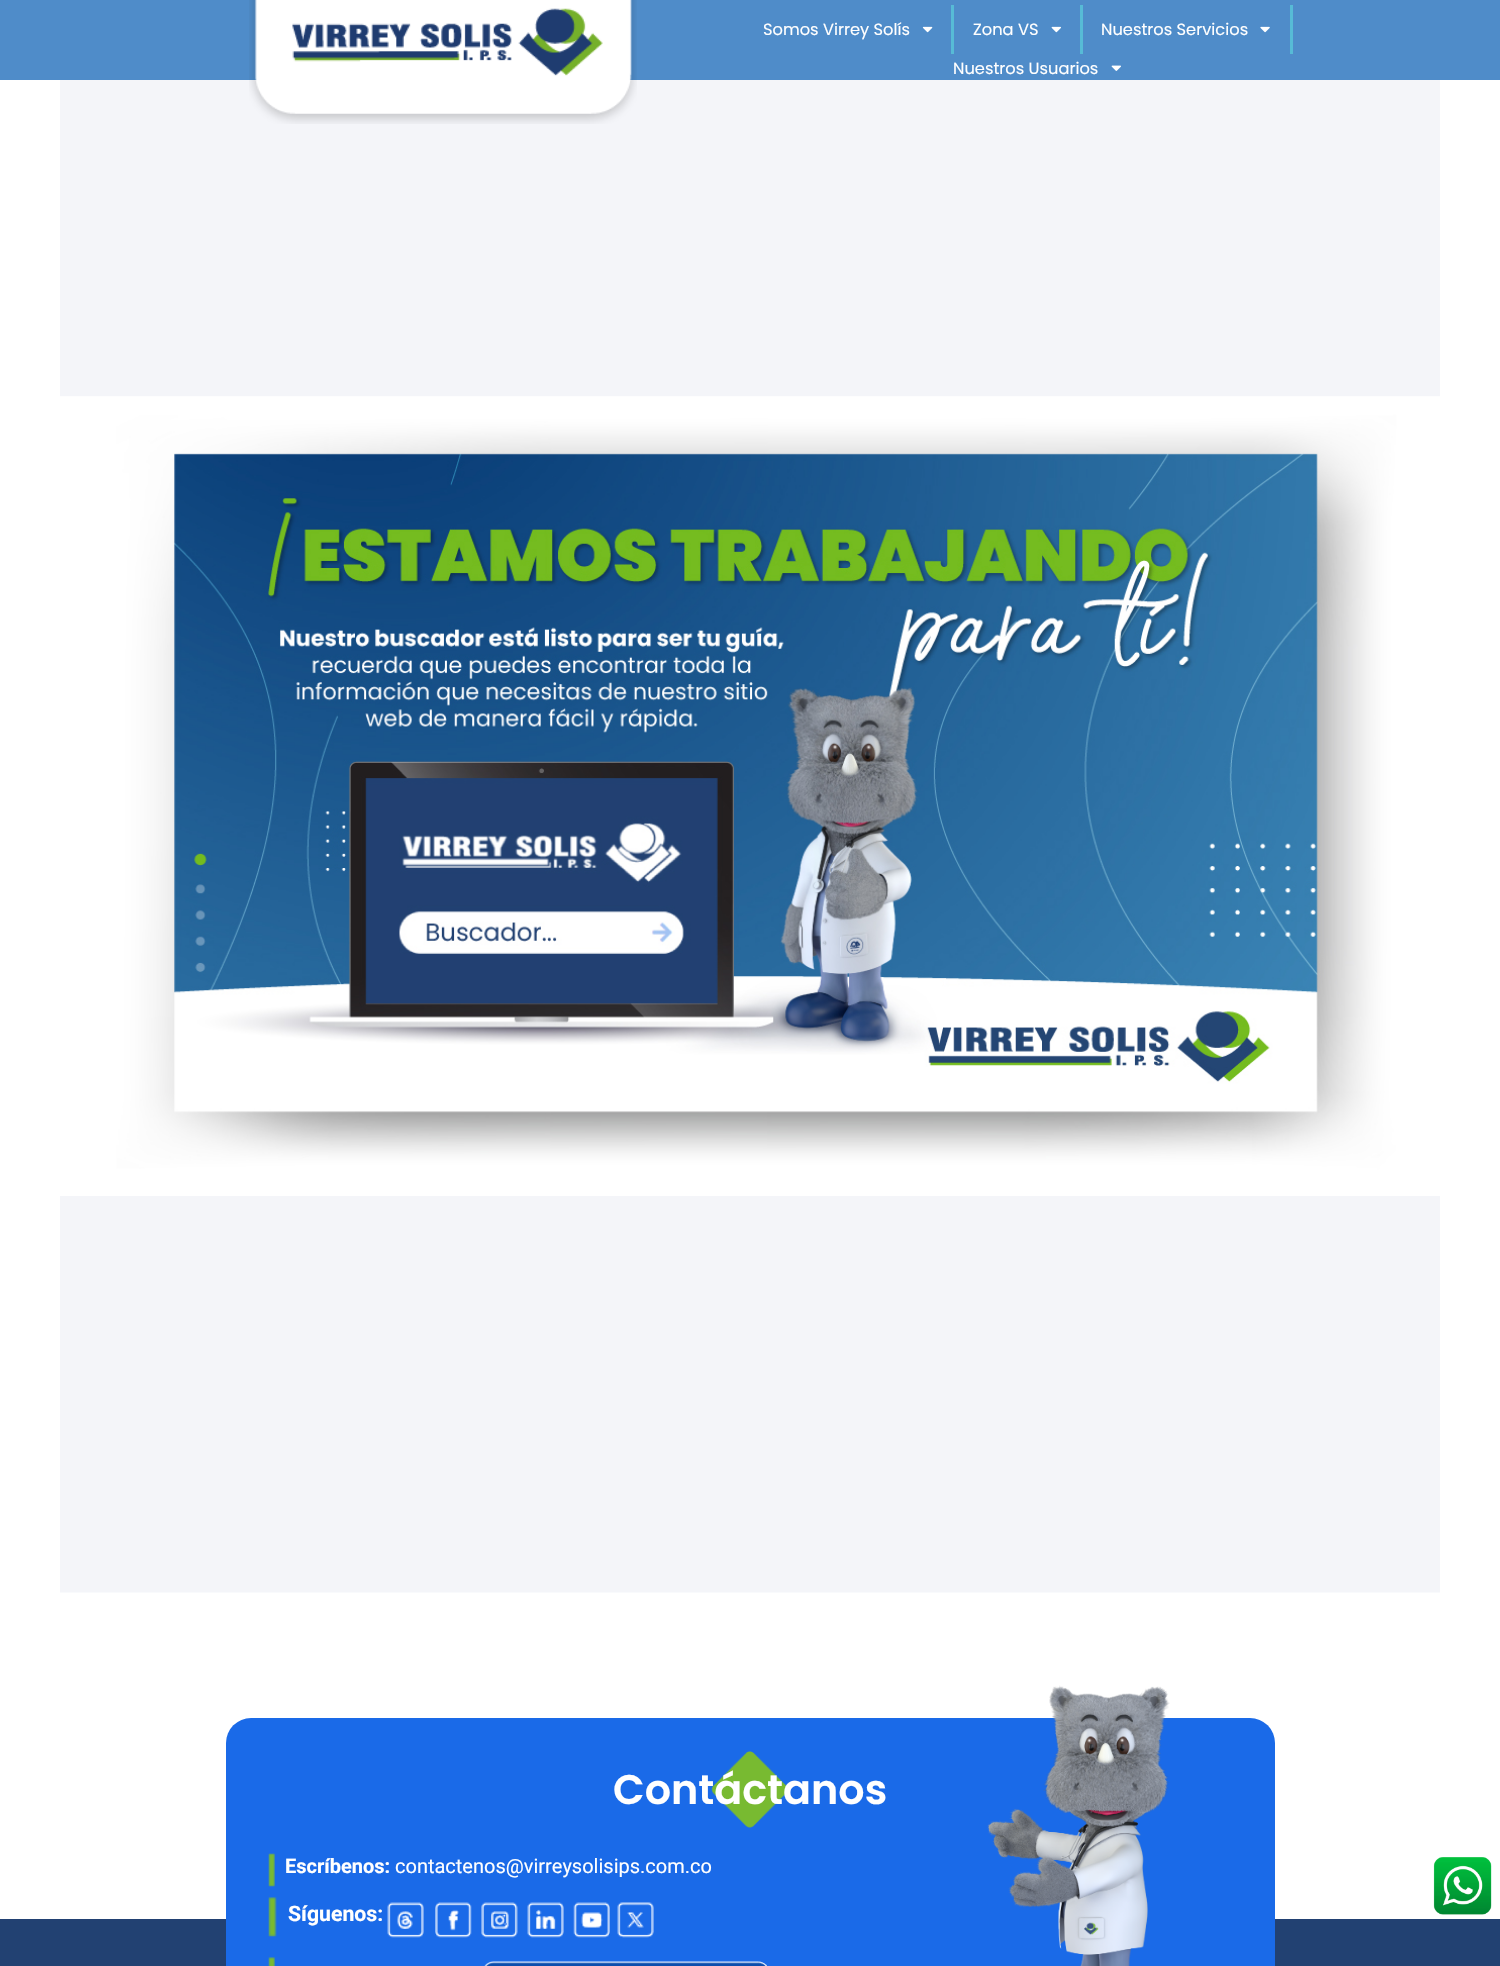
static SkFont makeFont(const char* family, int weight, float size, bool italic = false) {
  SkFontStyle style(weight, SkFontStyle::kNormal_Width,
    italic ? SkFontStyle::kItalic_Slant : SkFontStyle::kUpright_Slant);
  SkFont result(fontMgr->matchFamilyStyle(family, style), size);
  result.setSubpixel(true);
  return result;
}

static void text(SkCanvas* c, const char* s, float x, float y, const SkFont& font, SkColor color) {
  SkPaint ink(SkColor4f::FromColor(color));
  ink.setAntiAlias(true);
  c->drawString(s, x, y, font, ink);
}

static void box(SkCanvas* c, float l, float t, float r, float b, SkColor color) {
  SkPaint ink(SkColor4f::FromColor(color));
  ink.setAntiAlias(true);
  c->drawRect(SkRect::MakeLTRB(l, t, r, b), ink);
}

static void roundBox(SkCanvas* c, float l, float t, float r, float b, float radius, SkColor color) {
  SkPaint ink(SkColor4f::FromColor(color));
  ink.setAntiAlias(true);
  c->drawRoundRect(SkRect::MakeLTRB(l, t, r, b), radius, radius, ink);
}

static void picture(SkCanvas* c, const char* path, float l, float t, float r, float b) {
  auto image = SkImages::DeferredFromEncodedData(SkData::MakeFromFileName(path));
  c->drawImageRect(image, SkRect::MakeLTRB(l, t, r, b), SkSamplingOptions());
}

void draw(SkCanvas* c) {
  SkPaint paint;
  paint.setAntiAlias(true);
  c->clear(0xffffffff);
  box(c, 0, 0, 1500, 80, 0xff4f8cc9);
  picture(c, "img_06.png", 60, 80, 1440, 1593);
  picture(c, "img_01.png", 249, 0, 637, 124);
  SkFont face1 = makeFont("Poppins", 400, 16.25f);
  text(c, "Somos Virrey Solís", 763, 35, face1, 0xffffffff);
  picture(c, "img_02.png", 922, 26, 933, 33);
  box(c, 951, 5, 954, 54, 0xff57bbd6);
  text(c, "Zona VS", 973, 35, face1, 0xffffffff);
  picture(c, "img_03.png", 1051, 26, 1061, 33);
  box(c, 1080, 5, 1083, 54, 0xff57bbd6);
  text(c, "Nuestros Servicios", 1101, 35, face1, 0xffffffff);
  picture(c, "img_04.png", 1260, 26, 1270, 33);
  box(c, 1290, 5, 1293, 54, 0xff57bbd6);
  text(c, "Nuestros Usuarios", 953, 74, face1, 0xffffffff);
  picture(c, "img_05.png", 1111, 65, 1121, 71);
  picture(c, "img_07.png", 60, 396, 1440, 1196);
  box(c, 0, 1919, 1500, 1966, 0xff224172);
  roundBox(c, 226, 1718, 1275, 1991, 25, 0xff1a6ae8);
  picture(c, "img_08.png", 711, 1751, 788, 1828);
  SkFont face2 = makeFont("Poppins", 600, 41.25f);
  text(c, "Contáctanos", 613, 1804, face2, 0xffffffff);
  picture(c, "img_09.png", 268, 1853, 275, 1887);
  SkFont face3 = makeFont("Roboto", 700, 20);
  text(c, "Escríbenos:", 285, 1873, face3, 0xffffffff);
  SkFont face4 = makeFont("Roboto", 400, 20);
  text(c, "contactenos@virreysolisips.com.co", 395, 1873, face4, 0xffffffff);
  picture(c, "img_10.png", 268, 1897, 277, 1937);
  SkFont face5 = makeFont("Roboto", 700, 21.25f);
  text(c, "Síguenos:", 288, 1921, face5, 0xffffffff);
  picture(c, "img_11.png", 387, 1902, 424, 1938);
  picture(c, "img_12.png", 435, 1902, 472, 1938);
  picture(c, "img_13.png", 481, 1902, 518, 1938);
  SkFont face6 = makeFont("Roboto", 500, 19);
  text(c, ".", 503, 1925, face6, 0xff5791ee);
  picture(c, "img_14.png", 527, 1902, 564, 1938);
  picture(c, "img_15.png", 573, 1902, 610, 1938);
  picture(c, "img_16.png", 617, 1902, 654, 1938);
  picture(c, "img_17.png", 268, 1957, 275, 1966);
  picture(c, "img_18.png", 484, 1961, 767, 1966);
  picture(c, "img_19.png", 987, 1685, 1170, 1966);
  picture(c, "img_20.png", 1433, 1857, 1492, 1915);
}
